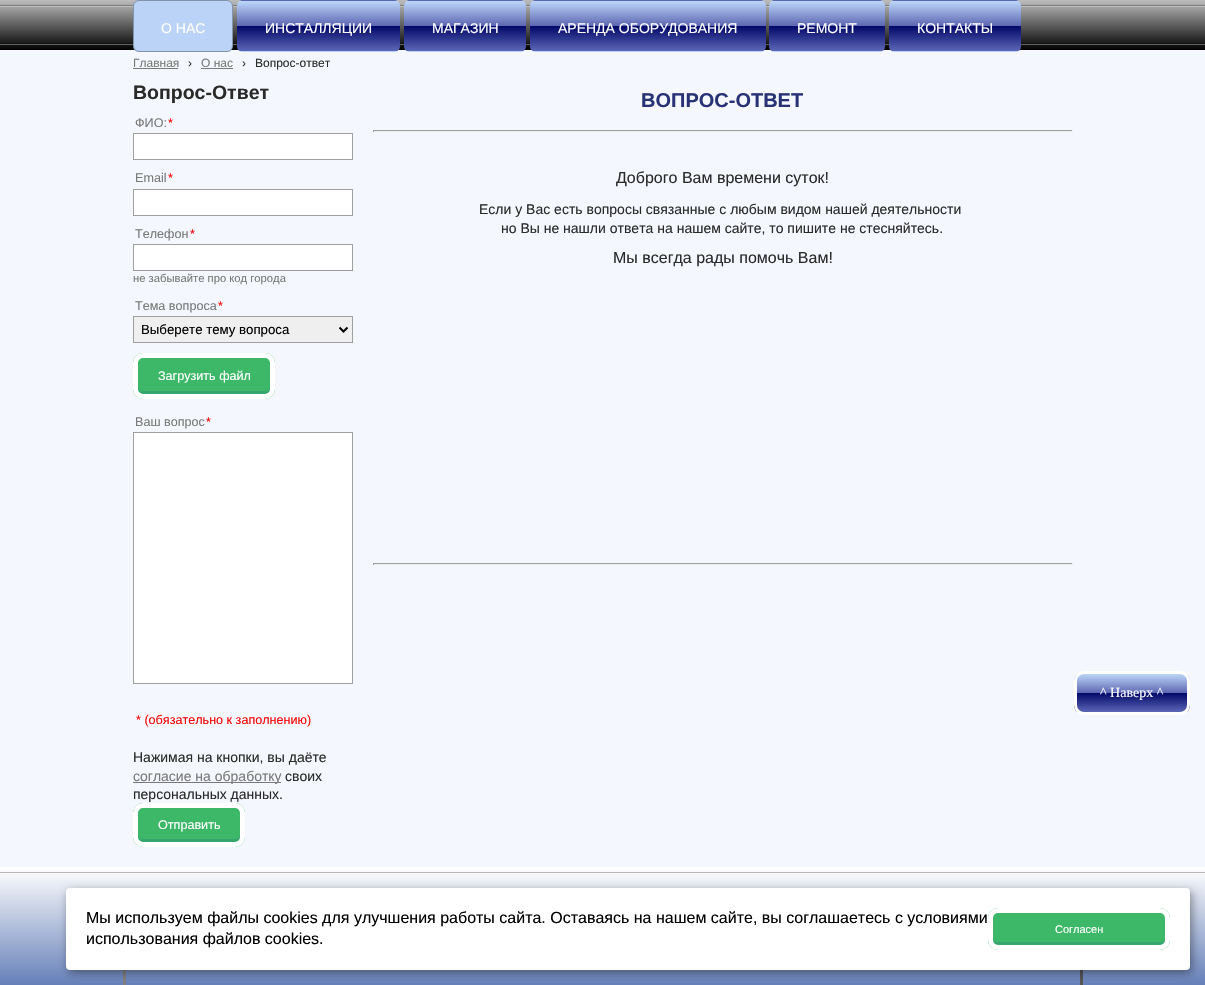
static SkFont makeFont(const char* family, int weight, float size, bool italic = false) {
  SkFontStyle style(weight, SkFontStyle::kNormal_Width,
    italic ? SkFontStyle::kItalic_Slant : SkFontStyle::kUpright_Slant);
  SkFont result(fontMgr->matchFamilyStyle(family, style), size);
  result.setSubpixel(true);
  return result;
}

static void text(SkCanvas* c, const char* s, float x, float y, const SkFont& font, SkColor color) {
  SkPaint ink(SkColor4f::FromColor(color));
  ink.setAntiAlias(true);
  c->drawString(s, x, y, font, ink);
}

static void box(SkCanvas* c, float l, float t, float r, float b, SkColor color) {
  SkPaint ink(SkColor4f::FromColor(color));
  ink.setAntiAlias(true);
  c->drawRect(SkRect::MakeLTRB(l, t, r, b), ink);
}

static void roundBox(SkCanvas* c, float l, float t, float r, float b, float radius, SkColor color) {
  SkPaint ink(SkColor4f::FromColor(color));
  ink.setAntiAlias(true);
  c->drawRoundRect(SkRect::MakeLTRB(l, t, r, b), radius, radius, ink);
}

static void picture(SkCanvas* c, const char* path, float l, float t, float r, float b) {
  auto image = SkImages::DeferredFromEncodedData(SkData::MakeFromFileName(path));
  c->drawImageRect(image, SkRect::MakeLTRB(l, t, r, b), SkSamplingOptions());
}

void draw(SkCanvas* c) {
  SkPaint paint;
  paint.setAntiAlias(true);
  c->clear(0xfff4f7fd);
  {
    const SkColor colors[] = {0xffbdbdbd, 0xff000000};
    const float stops[] = {0, 1};
    const SkPoint ends[] = {{603, 0}, {603, 50}};
    paint.setShader(SkGradientShader::MakeLinear(ends, colors, stops, 2, SkTileMode::kClamp));
    paint.setAlpha(255);
  }
  c->drawRect(SkRect::MakeLTRB(0, 0, 1205, 50), paint);
  picture(c, "img_01.png", 0, 5, 1205, 45);
  roundBox(c, 133, 0, 233, 52, 6, 0xffbad3f6);
  paint.setStyle(SkPaint::kStroke_Style);
  paint.setStrokeWidth(1);
  paint.setShader(nullptr);
  paint.setColor(0x4d000000);
  c->drawRoundRect(SkRect::MakeLTRB(133.5f, 0.5f, 232.5f, 51.5f), 5.5f, 5.5f, paint);
  SkFont face1 = makeFont("Liberation Sans", 400, 14);
  text(c, "О НАС", 161, 33, face1, 0xffffffff);
  c->save();
  c->clipPath(SkPathBuilder().moveTo(243, 0).lineTo(394, 0).cubicTo(397.5f, 0, 400, 2.5f, 400, 6).lineTo(400, 46).cubicTo(400, 49.5f, 397.5f, 52, 394, 52).lineTo(243, 52).cubicTo(239.5f, 52, 237, 49.5f, 237, 46).lineTo(237, 6).cubicTo(237, 2.5f, 239.5f, 0, 243, 0).close().detach(), true);
  paint.setStyle(SkPaint::kFill_Style);
  {
    const SkColor colors[] = {0xffbdd7fa, 0xff5d66b1, 0xff010767, 0xff5c67b7};
    const float stops[] = {0, 0.5f, 0.5f, 1};
    const SkPoint ends[] = {{319, -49}, {319, 1}};
    paint.setShader(SkGradientShader::MakeLinear(ends, colors, stops, 4, SkTileMode::kClamp));
    paint.setAlpha(255);
  }
  c->drawRect(SkRect::MakeLTRB(237, 0, 400, 1), paint);
  {
    const SkColor colors[] = {0xffbdd7fa, 0xff5d66b1, 0xff010767, 0xff5c67b7};
    const float stops[] = {0, 0.5f, 0.5f, 1};
    const SkPoint ends[] = {{319, 1}, {319, 51}};
    paint.setShader(SkGradientShader::MakeLinear(ends, colors, stops, 4, SkTileMode::kClamp));
    paint.setAlpha(255);
  }
  c->drawRect(SkRect::MakeLTRB(237, 1, 400, 51), paint);
  {
    const SkColor colors[] = {0xffbdd7fa, 0xff5d66b1, 0xff010767, 0xff5c67b7};
    const float stops[] = {0, 0.5f, 0.5f, 1};
    const SkPoint ends[] = {{319, 51}, {319, 101}};
    paint.setShader(SkGradientShader::MakeLinear(ends, colors, stops, 4, SkTileMode::kClamp));
    paint.setAlpha(255);
  }
  c->drawRect(SkRect::MakeLTRB(237, 51, 400, 52), paint);
  c->restore();
  text(c, "ИНСТАЛЛЯЦИИ", 265, 33, face1, 0xffffffff);
  c->save();
  c->clipPath(SkPathBuilder().moveTo(410, 0).lineTo(520, 0).cubicTo(523.5f, 0, 526, 2.5f, 526, 6).lineTo(526, 46).cubicTo(526, 49.5f, 523.5f, 52, 520, 52).lineTo(410, 52).cubicTo(406.5f, 52, 404, 49.5f, 404, 46).lineTo(404, 6).cubicTo(404, 2.5f, 406.5f, 0, 410, 0).close().detach(), true);
  {
    const SkColor colors[] = {0xffbdd7fa, 0xff5d66b1, 0xff010767, 0xff5c67b7};
    const float stops[] = {0, 0.5f, 0.5f, 1};
    const SkPoint ends[] = {{465, -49}, {465, 1}};
    paint.setShader(SkGradientShader::MakeLinear(ends, colors, stops, 4, SkTileMode::kClamp));
    paint.setAlpha(255);
  }
  c->drawRect(SkRect::MakeLTRB(404, 0, 526, 1), paint);
  {
    const SkColor colors[] = {0xffbdd7fa, 0xff5d66b1, 0xff010767, 0xff5c67b7};
    const float stops[] = {0, 0.5f, 0.5f, 1};
    const SkPoint ends[] = {{465, 1}, {465, 51}};
    paint.setShader(SkGradientShader::MakeLinear(ends, colors, stops, 4, SkTileMode::kClamp));
    paint.setAlpha(255);
  }
  c->drawRect(SkRect::MakeLTRB(404, 1, 526, 51), paint);
  {
    const SkColor colors[] = {0xffbdd7fa, 0xff5d66b1, 0xff010767, 0xff5c67b7};
    const float stops[] = {0, 0.5f, 0.5f, 1};
    const SkPoint ends[] = {{465, 51}, {465, 101}};
    paint.setShader(SkGradientShader::MakeLinear(ends, colors, stops, 4, SkTileMode::kClamp));
    paint.setAlpha(255);
  }
  c->drawRect(SkRect::MakeLTRB(404, 51, 526, 52), paint);
  c->restore();
  text(c, "МАГАЗИН", 432, 33, face1, 0xffffffff);
  c->save();
  c->clipPath(SkPathBuilder().moveTo(536, 0).lineTo(760, 0).cubicTo(763.5f, 0, 766, 2.5f, 766, 6).lineTo(766, 46).cubicTo(766, 49.5f, 763.5f, 52, 760, 52).lineTo(536, 52).cubicTo(532.5f, 52, 530, 49.5f, 530, 46).lineTo(530, 6).cubicTo(530, 2.5f, 532.5f, 0, 536, 0).close().detach(), true);
  {
    const SkColor colors[] = {0xffbdd7fa, 0xff5d66b1, 0xff010767, 0xff5c67b7};
    const float stops[] = {0, 0.5f, 0.5f, 1};
    const SkPoint ends[] = {{648, -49}, {648, 1}};
    paint.setShader(SkGradientShader::MakeLinear(ends, colors, stops, 4, SkTileMode::kClamp));
    paint.setAlpha(255);
  }
  c->drawRect(SkRect::MakeLTRB(530, 0, 766, 1), paint);
  {
    const SkColor colors[] = {0xffbdd7fa, 0xff5d66b1, 0xff010767, 0xff5c67b7};
    const float stops[] = {0, 0.5f, 0.5f, 1};
    const SkPoint ends[] = {{648, 1}, {648, 51}};
    paint.setShader(SkGradientShader::MakeLinear(ends, colors, stops, 4, SkTileMode::kClamp));
    paint.setAlpha(255);
  }
  c->drawRect(SkRect::MakeLTRB(530, 1, 766, 51), paint);
  {
    const SkColor colors[] = {0xffbdd7fa, 0xff5d66b1, 0xff010767, 0xff5c67b7};
    const float stops[] = {0, 0.5f, 0.5f, 1};
    const SkPoint ends[] = {{648, 51}, {648, 101}};
    paint.setShader(SkGradientShader::MakeLinear(ends, colors, stops, 4, SkTileMode::kClamp));
    paint.setAlpha(255);
  }
  c->drawRect(SkRect::MakeLTRB(530, 51, 766, 52), paint);
  c->restore();
  text(c, "АРЕНДА ОБОРУДОВАНИЯ", 558, 33, face1, 0xffffffff);
  c->save();
  c->clipPath(SkPathBuilder().moveTo(775, 0).lineTo(879, 0).cubicTo(882.5f, 0, 885, 2.5f, 885, 6).lineTo(885, 46).cubicTo(885, 49.5f, 882.5f, 52, 879, 52).lineTo(775, 52).cubicTo(771.5f, 52, 769, 49.5f, 769, 46).lineTo(769, 6).cubicTo(769, 2.5f, 771.5f, 0, 775, 0).close().detach(), true);
  {
    const SkColor colors[] = {0xffbdd7fa, 0xff5d66b1, 0xff010767, 0xff5c67b7};
    const float stops[] = {0, 0.5f, 0.5f, 1};
    const SkPoint ends[] = {{827, -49}, {827, 1}};
    paint.setShader(SkGradientShader::MakeLinear(ends, colors, stops, 4, SkTileMode::kClamp));
    paint.setAlpha(255);
  }
  c->drawRect(SkRect::MakeLTRB(769, 0, 885, 1), paint);
  {
    const SkColor colors[] = {0xffbdd7fa, 0xff5d66b1, 0xff010767, 0xff5c67b7};
    const float stops[] = {0, 0.5f, 0.5f, 1};
    const SkPoint ends[] = {{827, 1}, {827, 51}};
    paint.setShader(SkGradientShader::MakeLinear(ends, colors, stops, 4, SkTileMode::kClamp));
    paint.setAlpha(255);
  }
  c->drawRect(SkRect::MakeLTRB(769, 1, 885, 51), paint);
  {
    const SkColor colors[] = {0xffbdd7fa, 0xff5d66b1, 0xff010767, 0xff5c67b7};
    const float stops[] = {0, 0.5f, 0.5f, 1};
    const SkPoint ends[] = {{827, 51}, {827, 101}};
    paint.setShader(SkGradientShader::MakeLinear(ends, colors, stops, 4, SkTileMode::kClamp));
    paint.setAlpha(255);
  }
  c->drawRect(SkRect::MakeLTRB(769, 51, 885, 52), paint);
  c->restore();
  text(c, "РЕМОНТ", 797, 33, face1, 0xffffffff);
  c->save();
  c->clipPath(SkPathBuilder().moveTo(895, 0).lineTo(1015, 0).cubicTo(1018.5f, 0, 1021, 2.5f, 1021, 6).lineTo(1021, 46).cubicTo(1021, 49.5f, 1018.5f, 52, 1015, 52).lineTo(895, 52).cubicTo(891.5f, 52, 889, 49.5f, 889, 46).lineTo(889, 6).cubicTo(889, 2.5f, 891.5f, 0, 895, 0).close().detach(), true);
  {
    const SkColor colors[] = {0xffbdd7fa, 0xff5d66b1, 0xff010767, 0xff5c67b7};
    const float stops[] = {0, 0.5f, 0.5f, 1};
    const SkPoint ends[] = {{955, -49}, {955, 1}};
    paint.setShader(SkGradientShader::MakeLinear(ends, colors, stops, 4, SkTileMode::kClamp));
    paint.setAlpha(255);
  }
  c->drawRect(SkRect::MakeLTRB(889, 0, 1021, 1), paint);
  {
    const SkColor colors[] = {0xffbdd7fa, 0xff5d66b1, 0xff010767, 0xff5c67b7};
    const float stops[] = {0, 0.5f, 0.5f, 1};
    const SkPoint ends[] = {{955, 1}, {955, 51}};
    paint.setShader(SkGradientShader::MakeLinear(ends, colors, stops, 4, SkTileMode::kClamp));
    paint.setAlpha(255);
  }
  c->drawRect(SkRect::MakeLTRB(889, 1, 1021, 51), paint);
  {
    const SkColor colors[] = {0xffbdd7fa, 0xff5d66b1, 0xff010767, 0xff5c67b7};
    const float stops[] = {0, 0.5f, 0.5f, 1};
    const SkPoint ends[] = {{955, 51}, {955, 101}};
    paint.setShader(SkGradientShader::MakeLinear(ends, colors, stops, 4, SkTileMode::kClamp));
    paint.setAlpha(255);
  }
  c->drawRect(SkRect::MakeLTRB(889, 51, 1021, 52), paint);
  c->restore();
  text(c, "КОНТАКТЫ", 917, 33, face1, 0xffffffff);
  SkFont face2 = makeFont("Liberation Sans", 400, 12);
  text(c, "Главная", 133, 67, face2, 0xff797979);
  box(c, 133, 68, 178, 69, 0xff797979);
  text(c, "›", 188, 67, face2, 0xff2a2a2a);
  text(c, "О нас", 201, 67, face2, 0xff797979);
  box(c, 201, 68, 233, 69, 0xff797979);
  text(c, "›", 242, 67, face2, 0xff2a2a2a);
  text(c, "Вопрос-ответ", 255, 67, face2, 0xff2a2a2a);
  SkFont face3 = makeFont("Liberation Sans", 700, 19.5f);
  text(c, "Вопрос-Ответ", 133, 99, face3, 0xff2a2a2a);
  SkFont face4 = makeFont("Liberation Sans", 400, 12.6f);
  text(c, "ФИО:", 135, 127, face4, 0xff797979);
  text(c, "*", 168, 127, face4, 0xffff0000);
  paint.setShader(nullptr);
  paint.setColor(0xffffffff);
  c->drawRect(SkRect::MakeLTRB(133.5f, 133.5f, 352.5f, 159.5f), paint);
  paint.setStyle(SkPaint::kStroke_Style);
  paint.setColor(0xff9f9f9f);
  c->drawRect(SkRect::MakeLTRB(133.5f, 133.5f, 352.5f, 159.5f), paint);
  text(c, "Email", 135, 182, face4, 0xff797979);
  text(c, "*", 168, 182, face4, 0xffff0000);
  paint.setStyle(SkPaint::kFill_Style);
  paint.setColor(0xffffffff);
  c->drawRect(SkRect::MakeLTRB(133.5f, 189.5f, 352.5f, 215.5f), paint);
  paint.setStyle(SkPaint::kStroke_Style);
  paint.setColor(0xff9f9f9f);
  c->drawRect(SkRect::MakeLTRB(133.5f, 189.5f, 352.5f, 215.5f), paint);
  text(c, "Телефон", 135, 238, face4, 0xff797979);
  text(c, "*", 190, 238, face4, 0xffff0000);
  paint.setStyle(SkPaint::kFill_Style);
  paint.setColor(0xffffffff);
  c->drawRect(SkRect::MakeLTRB(133.5f, 244.5f, 352.5f, 270.5f), paint);
  paint.setStyle(SkPaint::kStroke_Style);
  paint.setColor(0xff9f9f9f);
  c->drawRect(SkRect::MakeLTRB(133.5f, 244.5f, 352.5f, 270.5f), paint);
  SkFont face5 = makeFont("Liberation Sans", 400, 11.25f);
  text(c, "не забывайте про код города", 133, 282, face5, 0xff797979);
  text(c, "Тема вопроса", 135, 310, face4, 0xff797979);
  text(c, "*", 218, 310, face4, 0xffff0000);
  paint.setStyle(SkPaint::kFill_Style);
  paint.setColor(0xffefefef);
  c->drawRect(SkRect::MakeLTRB(133.5f, 316.5f, 352.5f, 342.5f), paint);
  paint.setStyle(SkPaint::kStroke_Style);
  paint.setColor(0xff9f9f9f);
  c->drawRect(SkRect::MakeLTRB(133.5f, 316.5f, 352.5f, 342.5f), paint);
  paint.setStrokeWidth(2);
  paint.setColor(0xff000000);
  c->drawPath(SkPathBuilder().moveTo(339.5f, 327.5f).lineTo(343.5f, 331.5f).lineTo(347.5f, 327.5f).detach(), paint);
  SkFont face6 = makeFont("Liberation Sans", 400, 13.25f);
  text(c, "Выберете тему вопроса", 141, 334, face6, 0xff000000);
  roundBox(c, 133, 353, 275, 399, 10, 0xff3cb868);
  paint.setStyle(SkPaint::kFill_Style);
  paint.setColor(0xff35a76e);
  c->drawPath(SkPathBuilder().moveTo(138, 386).lineTo(138, 389).cubicTo(138, 392, 140, 394, 143, 394).lineTo(265, 394).cubicTo(268, 394, 270, 392, 270, 389).lineTo(270, 386).cubicTo(270, 389, 268, 391, 265, 391).lineTo(143, 391).cubicTo(140, 391, 138, 389, 138, 386).close().detach(), paint);
  paint.setStyle(SkPaint::kStroke_Style);
  paint.setStrokeWidth(5);
  paint.setColor(0xffffffff);
  c->drawRoundRect(SkRect::MakeLTRB(135.5f, 355.5f, 272.5f, 396.5f), 7.5f, 7.5f, paint);
  text(c, "Загрузить файл", 158, 380, face4, 0xffffffff);
  text(c, "Ваш вопрос", 135, 426, face4, 0xff797979);
  text(c, "*", 206, 426, face4, 0xffff0000);
  paint.setStyle(SkPaint::kFill_Style);
  c->drawRect(SkRect::MakeLTRB(133.5f, 432.5f, 352.5f, 683.5f), paint);
  paint.setStyle(SkPaint::kStroke_Style);
  paint.setStrokeWidth(1);
  paint.setColor(0xff9f9f9f);
  c->drawRect(SkRect::MakeLTRB(133.5f, 432.5f, 352.5f, 683.5f), paint);
  text(c, "* (обязательно к заполнению)", 136, 724, face4, 0xfff50505);
  text(c, "Нажимая на кнопки, вы даёте", 133, 762, face1, 0xff2a2a2a);
  box(c, 133, 782, 281, 783, 0xff797979);
  text(c, "согласие на обработку", 133, 781, face1, 0xff797979);
  text(c, "своих", 285, 781, face1, 0xff2a2a2a);
  text(c, "персональных данных.", 133, 799, face1, 0xff2a2a2a);
  roundBox(c, 133, 803, 245, 847, 10, 0xff3cb868);
  paint.setStyle(SkPaint::kFill_Style);
  paint.setColor(0xff35a76e);
  c->drawPath(SkPathBuilder().moveTo(138, 834).lineTo(138, 837).cubicTo(138, 840, 140, 842, 143, 842).lineTo(235, 842).cubicTo(238, 842, 240, 840, 240, 837).lineTo(240, 834).cubicTo(240, 837, 238, 839, 235, 839).lineTo(143, 839).cubicTo(140, 839, 138, 837, 138, 834).close().detach(), paint);
  paint.setStyle(SkPaint::kStroke_Style);
  paint.setStrokeWidth(5);
  paint.setColor(0xffffffff);
  c->drawRoundRect(SkRect::MakeLTRB(135.5f, 805.5f, 242.5f, 844.5f), 7.5f, 7.5f, paint);
  text(c, "Отправить", 158, 829, face4, 0xffffffff);
  SkFont face7 = makeFont("Liberation Sans", 700, 20);
  text(c, "ВОПРОС-ОТВЕТ", 641, 107, face7, 0xff293275);
  box(c, 373, 130, 1073, 131, 0xff9f9f9f);
  box(c, 1072, 130, 1073, 132, 0xffeeeeee);
  box(c, 373, 131, 1073, 132, 0xffeeeeee);
  box(c, 373, 130, 374, 132, 0xff9f9f9f);
  SkFont face8 = makeFont("Liberation Sans", 400, 16);
  text(c, "Доброго Вам времени суток!", 616, 183, face8, 0xff2a2a2a);
  text(c, "Если у Вас есть вопросы связанные с любым видом нашей деятельности", 479, 214, face1, 0xff2a2a2a);
  text(c, "но Вы не нашли ответа на нашем сайте, то пишите не стесняйтесь.", 501, 233, face1, 0xff2a2a2a);
  text(c, "Мы всегда рады помочь Вам!", 613, 263, face8, 0xff2a2a2a);
  box(c, 373, 563, 1073, 564, 0xff9f9f9f);
  box(c, 1072, 563, 1073, 565, 0xffeeeeee);
  box(c, 373, 564, 1073, 565, 0xffeeeeee);
  box(c, 373, 563, 374, 565, 0xff9f9f9f);
  paint.setStyle(SkPaint::kFill_Style);
  {
    const SkColor colors[] = {0xffffffff, 0xff5774b2, 0xffbdd7fa};
    const float stops[] = {0, 0.52f, 1};
    const SkPoint ends[] = {{603, 867}, {603, 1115}};
    paint.setShader(SkGradientShader::MakeLinear(ends, colors, stops, 3, SkTileMode::kClamp));
    paint.setAlpha(255);
  }
  c->drawRect(SkRect::MakeLTRB(0, 867, 1205, 985), paint);
  box(c, 0, 872, 1205, 873, 0xffb8b8ba);
  paint.setStyle(SkPaint::kStroke_Style);
  paint.setStrokeWidth(3);
  paint.setShader(nullptr);
  paint.setColor(0xff555555);
  c->drawPath(SkPathBuilder().moveTo(1080, 900).lineTo(1081.5f, 903).lineTo(1081.5f, 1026.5f).cubicTo(1081.5f, 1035, 1085.5f, 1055.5f, 1077, 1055.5f).lineTo(129, 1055.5f).lineTo(126, 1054).detach(), paint);
  paint.setColor(0xff808080);
  c->drawPath(SkPathBuilder().moveTo(126, 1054).lineTo(124.5f, 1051).lineTo(124.5f, 927.5f).cubicTo(124.5f, 919, 120.5f, 898.5f, 129, 898.5f).lineTo(1077, 898.5f).lineTo(1080, 900).detach(), paint);
  c->save();
  c->clipPath(SkPathBuilder().moveTo(1084, 671).lineTo(1180, 671).cubicTo(1185.5f, 671, 1190, 675.5f, 1190, 681).lineTo(1190, 705).cubicTo(1190, 710.5f, 1185.5f, 715, 1180, 715).lineTo(1084, 715).cubicTo(1078.5f, 715, 1074, 710.5f, 1074, 705).lineTo(1074, 681).cubicTo(1074, 675.5f, 1078.5f, 671, 1084, 671).close().detach(), true);
  paint.setStyle(SkPaint::kFill_Style);
  {
    const SkColor colors[] = {0xffbdd7fa, 0xff5d66b1, 0xff010767, 0xff5c67b7};
    const float stops[] = {0, 0.5f, 0.5f, 1};
    const SkPoint ends[] = {{1132, 674}, {1132, 712}};
    paint.setShader(SkGradientShader::MakeLinear(ends, colors, stops, 4, SkTileMode::kClamp));
    paint.setAlpha(255);
  }
  c->drawRect(SkRect::MakeLTRB(1074, 674, 1190, 712), paint);
  c->restore();
  paint.setStyle(SkPaint::kStroke_Style);
  paint.setShader(nullptr);
  paint.setColor(0xffffffff);
  c->drawRoundRect(SkRect::MakeLTRB(1075.5f, 672.5f, 1188.5f, 713.5f), 8.5f, 8.5f, paint);
  SkFont face9 = makeFont("Liberation Serif", 400, 14);
  text(c, "^ Наверх ^", 1100, 697, face9, 0xffffffff);
  paint.setStyle(SkPaint::kFill_Style);
  paint.setColor(0x66000000);
  paint.setMaskFilter(SkMaskFilter::MakeBlur(kNormal_SkBlurStyle, 5));
  c->drawRoundRect(SkRect::MakeLTRB(68, 891, 1192, 973), 4, 4, paint);
  paint.setMaskFilter(nullptr);
  roundBox(c, 66, 888, 1190, 970, 4, 0xffffffff);
  text(c, "Мы используем файлы cookies для улучшения работы сайта. Оставаясь на нашем сайте, вы соглашаетесь с условиями", 86, 923, face8, 0xff000000);
  text(c, "использования файлов cookies.", 86, 944, face8, 0xff000000);
  roundBox(c, 988, 908, 1170, 950, 10, 0xff3cb868);
  paint.setColor(0xff35a76e);
  c->drawPath(SkPathBuilder().moveTo(993, 937).lineTo(993, 940).cubicTo(993, 943, 995, 945, 998, 945).lineTo(1160, 945).cubicTo(1163, 945, 1165, 943, 1165, 940).lineTo(1165, 937).cubicTo(1165, 940, 1163, 942, 1160, 942).lineTo(998, 942).cubicTo(995, 942, 993, 940, 993, 937).close().detach(), paint);
  paint.setStyle(SkPaint::kStroke_Style);
  paint.setStrokeWidth(5);
  paint.setColor(0xffffffff);
  c->drawRoundRect(SkRect::MakeLTRB(990.5f, 910.5f, 1167.5f, 947.5f), 7.5f, 7.5f, paint);
  SkFont face10 = makeFont("Liberation Sans", 400, 11);
  text(c, "Согласен", 1055, 933, face10, 0xffffffff);
}
